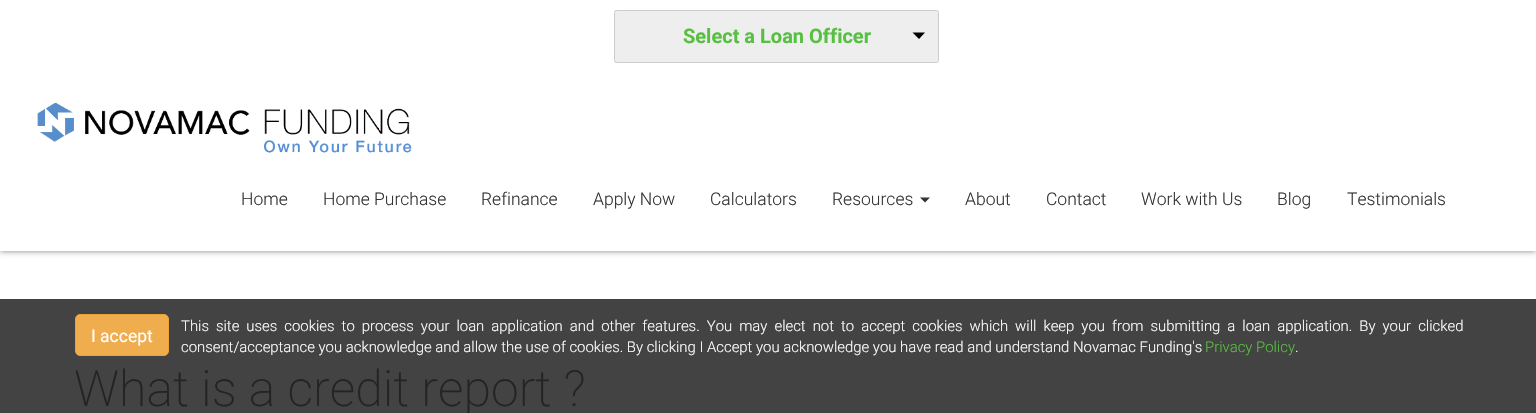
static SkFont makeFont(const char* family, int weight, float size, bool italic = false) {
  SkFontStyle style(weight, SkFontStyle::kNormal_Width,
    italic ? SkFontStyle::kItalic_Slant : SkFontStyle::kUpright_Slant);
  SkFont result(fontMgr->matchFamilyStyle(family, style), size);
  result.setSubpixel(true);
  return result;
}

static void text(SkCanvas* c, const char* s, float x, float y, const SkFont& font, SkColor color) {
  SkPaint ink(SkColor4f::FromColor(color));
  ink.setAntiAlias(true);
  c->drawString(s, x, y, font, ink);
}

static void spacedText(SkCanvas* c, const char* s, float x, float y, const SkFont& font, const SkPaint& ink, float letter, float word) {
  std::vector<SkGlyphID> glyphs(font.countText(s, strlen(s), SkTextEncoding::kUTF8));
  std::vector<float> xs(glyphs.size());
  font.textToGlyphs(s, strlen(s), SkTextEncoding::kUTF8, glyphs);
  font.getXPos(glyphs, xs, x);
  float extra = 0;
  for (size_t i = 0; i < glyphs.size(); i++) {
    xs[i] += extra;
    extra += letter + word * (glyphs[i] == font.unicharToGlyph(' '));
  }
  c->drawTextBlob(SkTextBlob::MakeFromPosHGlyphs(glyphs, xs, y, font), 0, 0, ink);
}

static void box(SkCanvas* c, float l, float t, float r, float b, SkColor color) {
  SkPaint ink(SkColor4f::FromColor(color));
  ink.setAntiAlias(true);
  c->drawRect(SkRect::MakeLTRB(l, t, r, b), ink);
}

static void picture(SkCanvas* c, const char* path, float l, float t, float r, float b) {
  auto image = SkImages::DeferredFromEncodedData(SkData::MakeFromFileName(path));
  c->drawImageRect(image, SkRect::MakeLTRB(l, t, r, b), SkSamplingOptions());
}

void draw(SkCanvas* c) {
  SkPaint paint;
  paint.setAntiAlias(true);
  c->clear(0xffffffff);
  box(c, 0, 299, 1536, 413, 0xff434343);
  paint.setColor(0x80000000);
  paint.setMaskFilter(SkMaskFilter::MakeBlur(kNormal_SkBlurStyle, 3));
  c->drawRect(SkRect::MakeLTRB(0, 0, 1536, 251), paint);
  paint.setMaskFilter(nullptr);
  box(c, 0, 0, 1536, 251, 0xffffffff);
  paint.setColor(0xffeeeeee);
  c->drawRoundRect(SkRect::MakeLTRB(614.5f, 10.5f, 938.5f, 62.5f), 2, 2, paint);
  paint.setStyle(SkPaint::kStroke_Style);
  paint.setStrokeWidth(1);
  paint.setColor(0xffcccccc);
  c->drawRoundRect(SkRect::MakeLTRB(614.5f, 10.5f, 938.5f, 62.5f), 2, 2, paint);
  SkFont face1 = makeFont("Roboto", 700, 20);
  text(c, "Select a Loan Officer", 683, 43, face1, 0xff56c040);
  paint.setStyle(SkPaint::kFill_Style);
  paint.setColor(0xff000000);
  c->drawPath(SkPathBuilder().moveTo(912.5f, 32.5f).lineTo(925, 32.5f).lineTo(919, 39).close().detach(), paint);
  picture(c, "img_01.png", 37, 103, 412, 153);
  SkFont face2 = makeFont("Roboto", 300, 17.5f);
  text(c, "Home", 241, 205, face2, 0xff333333);
  text(c, "Home Purchase", 323, 205, face2, 0xff333333);
  text(c, "Refinance", 481, 205, face2, 0xff333333);
  text(c, "Apply Now", 593, 205, face2, 0xff333333);
  text(c, "Calculators", 710, 205, face2, 0xff333333);
  text(c, "Resources", 832, 205, face2, 0xff333333);
  paint.setColor(0xff333333);
  c->drawPath(SkPathBuilder().moveTo(920, 197.5f).lineTo(930, 197.5f).lineTo(925, 202.5f).close().detach(), paint);
  text(c, "About", 965, 205, face2, 0xff333333);
  text(c, "Contact", 1046, 205, face2, 0xff333333);
  text(c, "Work with Us", 1141, 205, face2, 0xff333333);
  text(c, "Blog", 1277, 205, face2, 0xff333333);
  text(c, "Testimonials", 1347, 205, face2, 0xff333333);
  SkFont face3 = makeFont("Roboto", 300, 14.88f);
  paint.setColor(0xffffffff);
  spacedText(c, "This site uses cookies to process your loan application and other features. You may elect not to accept cookies which will keep you from submitting a loan application. By your clicked", 181, 331, face3, paint, 0, 3.4f);
  paint.setColor(0xfff0ad4e);
  c->drawRoundRect(SkRect::MakeLTRB(75.5f, 314.5f, 168.5f, 355.5f), 4.5f, 4.5f, paint);
  paint.setStyle(SkPaint::kStroke_Style);
  paint.setColor(0xffeea236);
  c->drawRoundRect(SkRect::MakeLTRB(75.5f, 314.5f, 168.5f, 355.5f), 4.5f, 4.5f, paint);
  SkFont face4 = makeFont("Roboto", 400, 17.5f);
  text(c, "I accept", 91, 342, face4, 0xffffffff);
  text(c, "consent/acceptance you acknowledge and allow the use of cookies. By clicking I Accept you acknowledge you have read and understand Novamac Funding's", 181, 352, face3, 0xffffffff);
  text(c, "Privacy Policy", 1205, 352, face3, 0xff56c040);
  text(c, ".", 1295, 352, face3, 0xffffffff);
  SkFont face5 = makeFont("Roboto", 200, 50);
  text(c, "What is a credit report ?", 74, 406, face5, 0xff242424);
}
